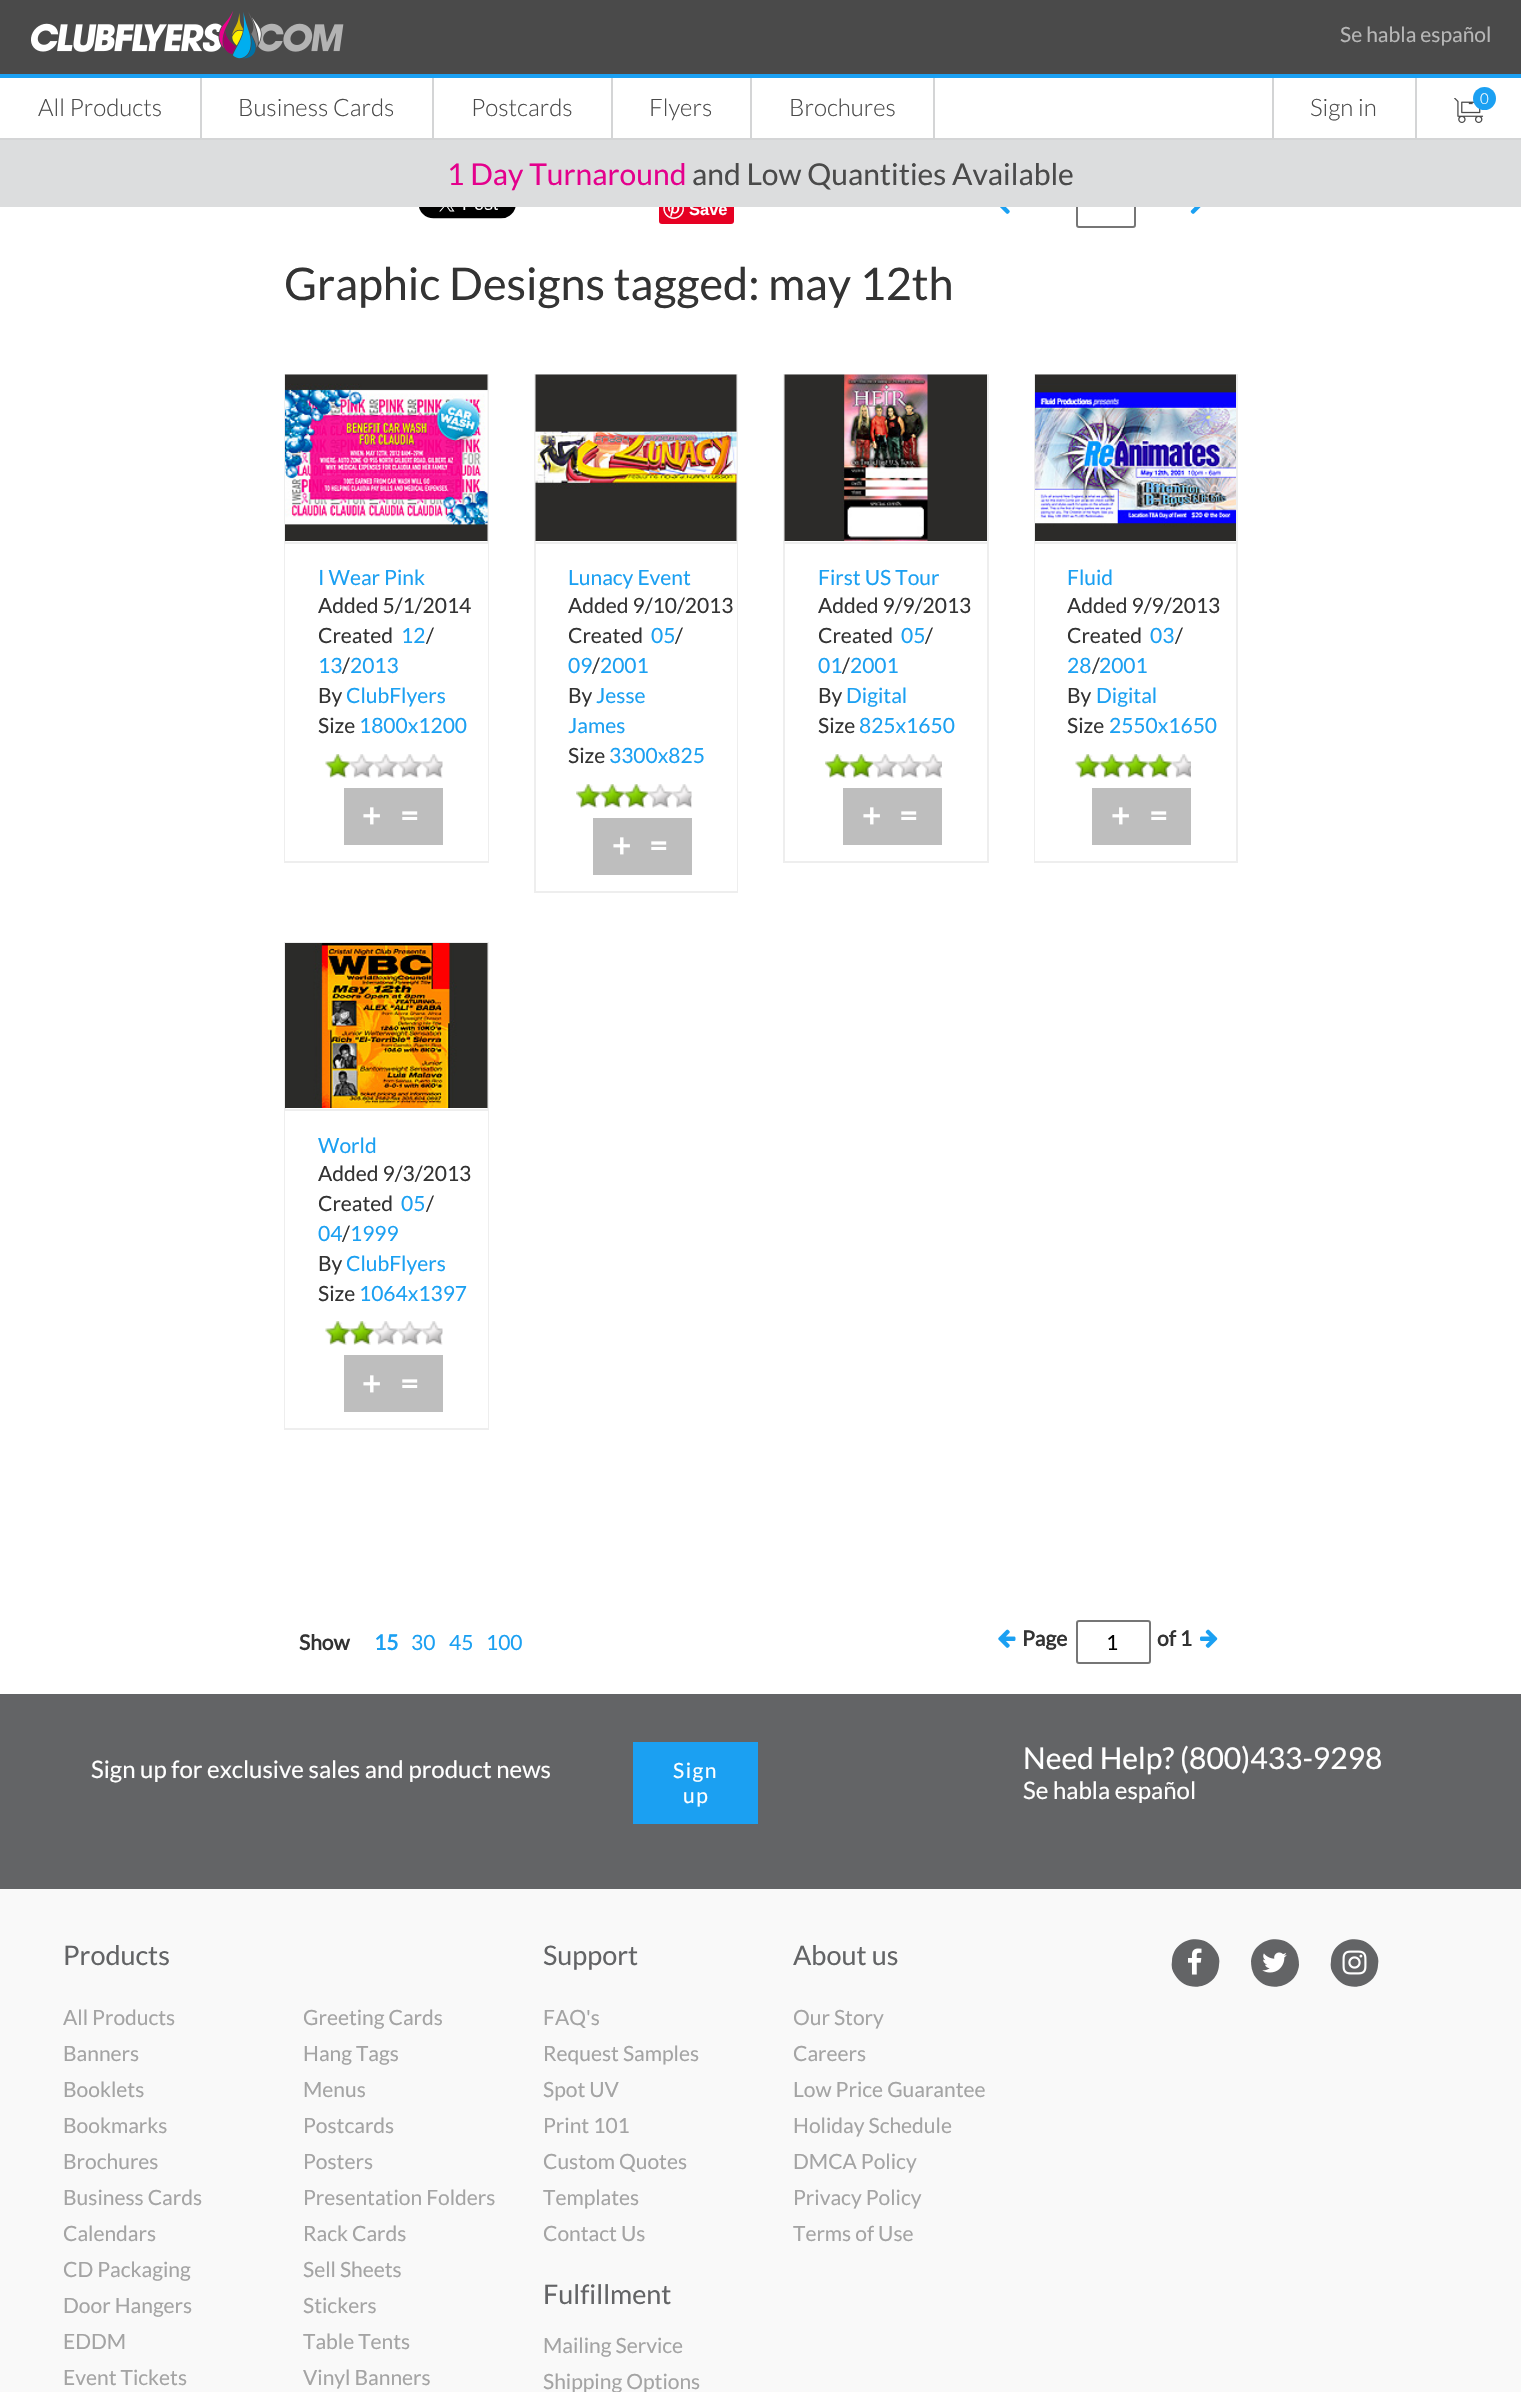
static SkFont makeFont(const char* family, int weight, float size, bool italic = false) {
  SkFontStyle style(weight, SkFontStyle::kNormal_Width,
    italic ? SkFontStyle::kItalic_Slant : SkFontStyle::kUpright_Slant);
  SkFont result(fontMgr->matchFamilyStyle(family, style), size);
  result.setSubpixel(true);
  return result;
}

static void text(SkCanvas* c, const char* s, float x, float y, const SkFont& font, SkColor color) {
  SkPaint ink(SkColor4f::FromColor(color));
  ink.setAntiAlias(true);
  c->drawString(s, x, y, font, ink);
}

static void spacedText(SkCanvas* c, const char* s, float x, float y, const SkFont& font, const SkPaint& ink, float letter, float word) {
  std::vector<SkGlyphID> glyphs(font.countText(s, strlen(s), SkTextEncoding::kUTF8));
  std::vector<float> xs(glyphs.size());
  font.textToGlyphs(s, strlen(s), SkTextEncoding::kUTF8, glyphs);
  font.getXPos(glyphs, xs, x);
  float extra = 0;
  for (size_t i = 0; i < glyphs.size(); i++) {
    xs[i] += extra;
    extra += letter + word * (glyphs[i] == font.unicharToGlyph(' '));
  }
  c->drawTextBlob(SkTextBlob::MakeFromPosHGlyphs(glyphs, xs, y, font), 0, 0, ink);
}

static void box(SkCanvas* c, float l, float t, float r, float b, SkColor color) {
  SkPaint ink(SkColor4f::FromColor(color));
  ink.setAntiAlias(true);
  c->drawRect(SkRect::MakeLTRB(l, t, r, b), ink);
}

static void roundBox(SkCanvas* c, float l, float t, float r, float b, float radius, SkColor color) {
  SkPaint ink(SkColor4f::FromColor(color));
  ink.setAntiAlias(true);
  c->drawRoundRect(SkRect::MakeLTRB(l, t, r, b), radius, radius, ink);
}

static void picture(SkCanvas* c, const char* path, float l, float t, float r, float b) {
  auto image = SkImages::DeferredFromEncodedData(SkData::MakeFromFileName(path));
  c->drawImageRect(image, SkRect::MakeLTRB(l, t, r, b), SkSamplingOptions());
}

void draw(SkCanvas* c) {
  SkPaint paint;
  paint.setAntiAlias(true);
  c->clear(0xffffffff);
  box(c, 0, 0, 1521, 74, 0xff4a4a4a);
  box(c, 0, 74, 1521, 78, 0xff1ba0f2);
  picture(c, "img_01.png", 31, 11, 344, 59);
  SkFont face1 = makeFont("Lato", 400, 21);
  text(c, "Se habla español", 1340, 42, face1, 0xffb7b7b7);
  box(c, 0, 138, 1521, 140, 0xffd4d5d6);
  box(c, 200, 78, 202, 138, 0xffd4d5d6);
  SkFont face2 = makeFont("Lato", 300, 24);
  text(c, "All Products", 38, 116, face2, 0xff4a4a4a);
  box(c, 432, 78, 434, 138, 0xffd4d5d6);
  text(c, "Business Cards", 238, 116, face2, 0xff4a4a4a);
  box(c, 611, 78, 613, 138, 0xffd4d5d6);
  text(c, "Postcards", 471, 116, face2, 0xff4a4a4a);
  box(c, 750, 78, 752, 138, 0xffd4d5d6);
  text(c, "Flyers", 649, 116, face2, 0xff4a4a4a);
  box(c, 933, 78, 935, 138, 0xffd4d5d6);
  text(c, "Brochures", 789, 116, face2, 0xff4a4a4a);
  box(c, 1415, 78, 1417, 138, 0xffd4d5d6);
  box(c, 1272, 78, 1274, 138, 0xffd3d4d5);
  text(c, "Sign in", 1310, 116, face2, 0xff4a4a4a);
  picture(c, "img_02.png", 1454, 98, 1484, 123);
  paint.setColor(0xff1ba0f2);
  c->drawCircle(1484.5f, 98.5f, 11.5f, paint);
  SkFont face3 = makeFont("Lato", 300, 15);
  text(c, "0", 1480, 104, face3, 0xffffffff);
  roundBox(c, 659, 194, 734, 224, 3, 0xffe60023);
  SkFont face4 = makeFont("Liberation Sans", 700, 16.5f);
  text(c, "Save", 689, 215, face4, 0xffffffff);
  paint.setStyle(SkPaint::kStroke_Style);
  paint.setStrokeWidth(2);
  paint.setColor(0xff767676);
  c->drawRoundRect(SkRect::MakeLTRB(1077, 190, 1135, 227), 2, 2, paint);
  box(c, 0, 140, 1521, 207, 0xffdcddde);
  SkFont face5 = makeFont("Lato", 400, 30);
  text(c, "1 Day Turnaround", 447, 185, face5, 0xffe4008c);
  text(c, "and Low Quantities Available", 692, 185, face5, 0xff4a4a4a);
  picture(c, "img_03.png", 419, 207, 516, 219);
  picture(c, "img_04.png", 663, 207, 684, 219);
  picture(c, "img_05.png", 1000, 207, 1010, 214);
  picture(c, "img_06.png", 1190, 207, 1201, 214);
  SkFont face6 = makeFont("Lato", 400, 45);
  text(c, "Graphic Designs tagged: may 12th", 284, 300, face6, 0xff333333);
  paint.setColor(0xffeeeeee);
  c->drawRect(SkRect::MakeLTRB(285, 375, 488, 862), paint);
  picture(c, "img_07.png", 285, 374, 488, 541);
  box(c, 285, 544, 488, 861, 0xffffffff);
  box(c, 285, 542, 488, 544, 0xffeeeeee);
  text(c, "I Wear Pink", 318, 585, face1, 0xff1ba0f2);
  text(c, "Added 5/1/2014", 318, 613, face1, 0xff333333);
  text(c, "Created", 318, 643, face1, 0xff333333);
  text(c, "12", 401, 643, face1, 0xff1ba0f2);
  text(c, "/", 426, 643, face1, 0xff333333);
  text(c, "13", 318, 673, face1, 0xff1ba0f2);
  text(c, "/", 342, 673, face1, 0xff333333);
  text(c, "2013", 350, 673, face1, 0xff1ba0f2);
  text(c, "By", 318, 703, face1, 0xff333333);
  text(c, "ClubFlyers", 346, 703, face1, 0xff1ba0f2);
  text(c, "Size", 318, 733, face1, 0xff333333);
  text(c, "1800x1200", 359, 733, face1, 0xff1ba0f2);
  picture(c, "img_08.png", 325, 754, 443, 778);
  box(c, 344, 788, 443, 845, 0xffbebebe);
  SkFont face7 = makeFont("Lato", 700, 32);
  text(c, "+", 362, 827, face7, 0xffffffff);
  text(c, "=", 400, 827, face7, 0xffffffff);
  c->drawRect(SkRect::MakeLTRB(535, 375, 737, 892), paint);
  picture(c, "img_09.png", 535, 374, 737, 541);
  box(c, 736, 544, 737, 891, 0xffffffff);
  box(c, 536, 542, 737, 544, 0xffeeeeee);
  text(c, "Lunacy Event", 568, 585, face1, 0xff1ba0f2);
  text(c, "Added 9/10/2013", 568, 613, face1, 0xff333333);
  text(c, "Created", 568, 643, face1, 0xff333333);
  text(c, "05", 651, 643, face1, 0xff1ba0f2);
  text(c, "/", 675, 643, face1, 0xff333333);
  text(c, "09", 568, 673, face1, 0xff1ba0f2);
  text(c, "/", 592, 673, face1, 0xff333333);
  text(c, "2001", 600, 673, face1, 0xff1ba0f2);
  text(c, "By", 568, 703, face1, 0xff333333);
  text(c, "Jesse", 596, 703, face1, 0xff1ba0f2);
  text(c, "James", 568, 733, face1, 0xff1ba0f2);
  text(c, "Size", 568, 763, face1, 0xff333333);
  text(c, "3300x825", 609, 763, face1, 0xff1ba0f2);
  picture(c, "img_10.png", 576, 784, 692, 808);
  box(c, 593, 818, 692, 875, 0xffbebebe);
  text(c, "+", 612, 857, face7, 0xffffffff);
  text(c, "=", 649, 857, face7, 0xffffffff);
  c->drawRect(SkRect::MakeLTRB(784, 375, 988, 862), paint);
  picture(c, "img_11.png", 784, 374, 987, 541);
  box(c, 785, 542, 987, 544, 0xffeeeeee);
  text(c, "First US Tour", 818, 585, face1, 0xff1ba0f2);
  text(c, "Added 9/9/2013", 818, 613, face1, 0xff333333);
  text(c, "Created", 818, 643, face1, 0xff333333);
  text(c, "05", 901, 643, face1, 0xff1ba0f2);
  text(c, "/", 925, 643, face1, 0xff333333);
  text(c, "01", 818, 673, face1, 0xff1ba0f2);
  text(c, "/", 842, 673, face1, 0xff333333);
  text(c, "2001", 850, 673, face1, 0xff1ba0f2);
  text(c, "By", 818, 703, face1, 0xff333333);
  text(c, "Digital", 846, 703, face1, 0xff1ba0f2);
  text(c, "Size", 818, 733, face1, 0xff333333);
  text(c, "825x1650", 859, 733, face1, 0xff1ba0f2);
  picture(c, "img_12.png", 825, 754, 942, 778);
  box(c, 843, 788, 942, 845, 0xffbebebe);
  text(c, "+", 862, 827, face7, 0xffffffff);
  text(c, "=", 899, 827, face7, 0xffffffff);
  c->drawRect(SkRect::MakeLTRB(1035, 375, 1237, 862), paint);
  picture(c, "img_13.png", 1035, 374, 1236, 541);
  box(c, 1035, 544, 1036, 861, 0xffffffff);
  box(c, 1035, 542, 1236, 544, 0xffeeeeee);
  text(c, "Fluid", 1067, 585, face1, 0xff1ba0f2);
  text(c, "Added 9/9/2013", 1067, 613, face1, 0xff333333);
  text(c, "Created", 1067, 643, face1, 0xff333333);
  text(c, "03", 1150, 643, face1, 0xff1ba0f2);
  text(c, "/", 1175, 643, face1, 0xff333333);
  text(c, "28", 1067, 673, face1, 0xff1ba0f2);
  text(c, "/", 1092, 673, face1, 0xff333333);
  text(c, "2001", 1099, 673, face1, 0xff1ba0f2);
  text(c, "By", 1067, 703, face1, 0xff333333);
  text(c, "Digital", 1096, 703, face1, 0xff1ba0f2);
  text(c, "Size", 1067, 733, face1, 0xff333333);
  text(c, "2550x1650", 1109, 733, face1, 0xff1ba0f2);
  picture(c, "img_14.png", 1075, 754, 1191, 778);
  box(c, 1092, 788, 1191, 845, 0xffbebebe);
  text(c, "+", 1111, 827, face7, 0xffffffff);
  text(c, "=", 1149, 827, face7, 0xffffffff);
  c->drawRect(SkRect::MakeLTRB(285, 943, 488, 1429), paint);
  picture(c, "img_15.png", 285, 943, 488, 1108);
  box(c, 285, 1111, 488, 1428, 0xffffffff);
  box(c, 285, 1109, 488, 1111, 0xffeeeeee);
  text(c, "World", 318, 1153, face1, 0xff1ba0f2);
  text(c, "Added 9/3/2013", 318, 1181, face1, 0xff333333);
  text(c, "Created", 318, 1211, face1, 0xff333333);
  text(c, "05", 401, 1211, face1, 0xff1ba0f2);
  text(c, "/", 426, 1211, face1, 0xff333333);
  text(c, "04", 318, 1241, face1, 0xff1ba0f2);
  text(c, "/", 342, 1241, face1, 0xff333333);
  text(c, "1999", 350, 1241, face1, 0xff1ba0f2);
  text(c, "By", 318, 1271, face1, 0xff333333);
  text(c, "ClubFlyers", 346, 1271, face1, 0xff1ba0f2);
  text(c, "Size", 318, 1301, face1, 0xff333333);
  text(c, "1064x1397", 359, 1301, face1, 0xff1ba0f2);
  picture(c, "img_16.png", 325, 1321, 443, 1345);
  box(c, 344, 1355, 443, 1412, 0xffbebebe);
  text(c, "+", 362, 1395, face7, 0xffffffff);
  text(c, "=", 400, 1395, face7, 0xffffffff);
  SkFont face8 = makeFont("Lato", 700, 21);
  text(c, "Show", 299, 1650, face8, 0xff333333);
  text(c, "15", 374, 1650, face8, 0xff1ba0f2);
  text(c, "30", 411, 1650, face1, 0xff1ba0f2);
  text(c, "45", 449, 1650, face1, 0xff1ba0f2);
  text(c, "100", 486, 1650, face1, 0xff1ba0f2);
  picture(c, "img_17.png", 998, 1629, 1016, 1648);
  text(c, "Page", 1022, 1646, face8, 0xff333333);
  paint.setColor(0xff767676);
  c->drawRoundRect(SkRect::MakeLTRB(1077, 1621, 1150, 1663), 2, 2, paint);
  text(c, "1", 1106, 1650, face1, 0xff000000);
  text(c, "of 1", 1157, 1646, face8, 0xff333333);
  picture(c, "img_18.png", 1200, 1629, 1218, 1648);
  box(c, 0, 1694, 1521, 1889, 0xff636466);
  SkFont face9 = makeFont("Lato", 400, 24);
  text(c, "Sign up for exclusive sales and product news", 91, 1778, face9, 0xffffffff);
  box(c, 633, 1742, 758, 1824, 0xff1ba0f2);
  paint.setStyle(SkPaint::kFill_Style);
  paint.setColor(0xffffffff);
  spacedText(c, "Sign", 673, 1778, face1, paint, 1.5f, 0);
  spacedText(c, "up", 683, 1803, face1, paint, 1.5f, 0);
  text(c, "Need Help? (800)433-9298", 1023, 1769, face5, 0xffffffff);
  text(c, "Se habla español", 1023, 1799, face9, 0xffffffff);
  box(c, 0, 1889, 1521, 2392, 0xfff9f9f9);
  SkFont face10 = makeFont("Lato", 400, 27);
  text(c, "Products", 63, 1965, face10, 0xff636466);
  text(c, "All Products", 63, 2025, face1, 0xffa4a4a4);
  text(c, "Banners", 63, 2061, face1, 0xffa4a4a4);
  text(c, "Booklets", 63, 2097, face1, 0xffa4a4a4);
  text(c, "Bookmarks", 63, 2133, face1, 0xffa4a4a4);
  text(c, "Brochures", 63, 2169, face1, 0xffa4a4a4);
  text(c, "Business Cards", 63, 2205, face1, 0xffa4a4a4);
  text(c, "Calendars", 63, 2241, face1, 0xffa4a4a4);
  text(c, "CD Packaging", 63, 2277, face1, 0xffa4a4a4);
  text(c, "Door Hangers", 63, 2313, face1, 0xffa4a4a4);
  text(c, "EDDM", 63, 2349, face1, 0xffa4a4a4);
  text(c, "Event Tickets", 63, 2385, face1, 0xffa4a4a4);
  text(c, "Greeting Cards", 303, 2025, face1, 0xffa4a4a4);
  text(c, "Hang Tags", 303, 2061, face1, 0xffa4a4a4);
  text(c, "Menus", 303, 2097, face1, 0xffa4a4a4);
  text(c, "Postcards", 303, 2133, face1, 0xffa4a4a4);
  text(c, "Posters", 303, 2169, face1, 0xffa4a4a4);
  text(c, "Presentation Folders", 303, 2205, face1, 0xffa4a4a4);
  text(c, "Rack Cards", 303, 2241, face1, 0xffa4a4a4);
  text(c, "Sell Sheets", 303, 2277, face1, 0xffa4a4a4);
  text(c, "Stickers", 303, 2313, face1, 0xffa4a4a4);
  text(c, "Table Tents", 303, 2349, face1, 0xffa4a4a4);
  text(c, "Vinyl Banners", 303, 2385, face1, 0xffa4a4a4);
  text(c, "Support", 543, 1965, face10, 0xff636466);
  text(c, "FAQ's", 543, 2025, face1, 0xffa4a4a4);
  text(c, "Request Samples", 543, 2061, face1, 0xffa4a4a4);
  text(c, "Spot UV", 543, 2097, face1, 0xffa4a4a4);
  text(c, "Print 101", 543, 2133, face1, 0xffa4a4a4);
  text(c, "Custom Quotes", 543, 2169, face1, 0xffa4a4a4);
  text(c, "Templates", 543, 2205, face1, 0xffa4a4a4);
  text(c, "Contact Us", 543, 2241, face1, 0xffa4a4a4);
  text(c, "Fulfillment", 543, 2304, face10, 0xff636466);
  text(c, "Mailing Service", 543, 2353, face1, 0xffa4a4a4);
  text(c, "Shipping Options", 543, 2389, face1, 0xffa4a4a4);
  text(c, "About us", 793, 1965, face10, 0xff636466);
  text(c, "Our Story", 793, 2025, face1, 0xffa4a4a4);
  text(c, "Careers", 793, 2061, face1, 0xffa4a4a4);
  text(c, "Low Price Guarantee", 793, 2097, face1, 0xffa4a4a4);
  text(c, "Holiday Schedule", 793, 2133, face1, 0xffa4a4a4);
  text(c, "DMCA Policy", 793, 2169, face1, 0xffa4a4a4);
  text(c, "Privacy Policy", 793, 2205, face1, 0xffa4a4a4);
  text(c, "Terms of Use", 793, 2241, face1, 0xffa4a4a4);
  paint.setColor(0xff636466);
  c->drawPath(SkPathBuilder().moveTo(1216, 1951).cubicTo(1219, 1955, 1220, 1960, 1219, 1965).cubicTo(1218, 1988, 1187, 1995, 1175, 1975).cubicTo(1172, 1971, 1171, 1966, 1172, 1961).cubicTo(1173, 1938, 1204, 1931, 1216, 1951).close().detach(), paint);
  picture(c, "img_19.png", 1188, 1948, 1202, 1975);
  c->drawPath(SkPathBuilder().moveTo(1296, 1951).cubicTo(1298, 1955, 1299, 1960, 1299, 1965).cubicTo(1297, 1988, 1266, 1995, 1254, 1975).cubicTo(1252, 1971, 1251, 1966, 1251, 1961).cubicTo(1253, 1938, 1284, 1931, 1296, 1951).close().detach(), paint);
  picture(c, "img_20.png", 1262, 1952, 1287, 1973);
  c->drawPath(SkPathBuilder().moveTo(1375, 1951).cubicTo(1378, 1955, 1379, 1960, 1378, 1965).cubicTo(1377, 1988, 1346, 1995, 1334, 1975).cubicTo(1331, 1971, 1330, 1966, 1331, 1961).cubicTo(1332, 1938, 1363, 1931, 1375, 1951).close().detach(), paint);
  picture(c, "img_21.png", 1342, 1950, 1367, 1975);
}
